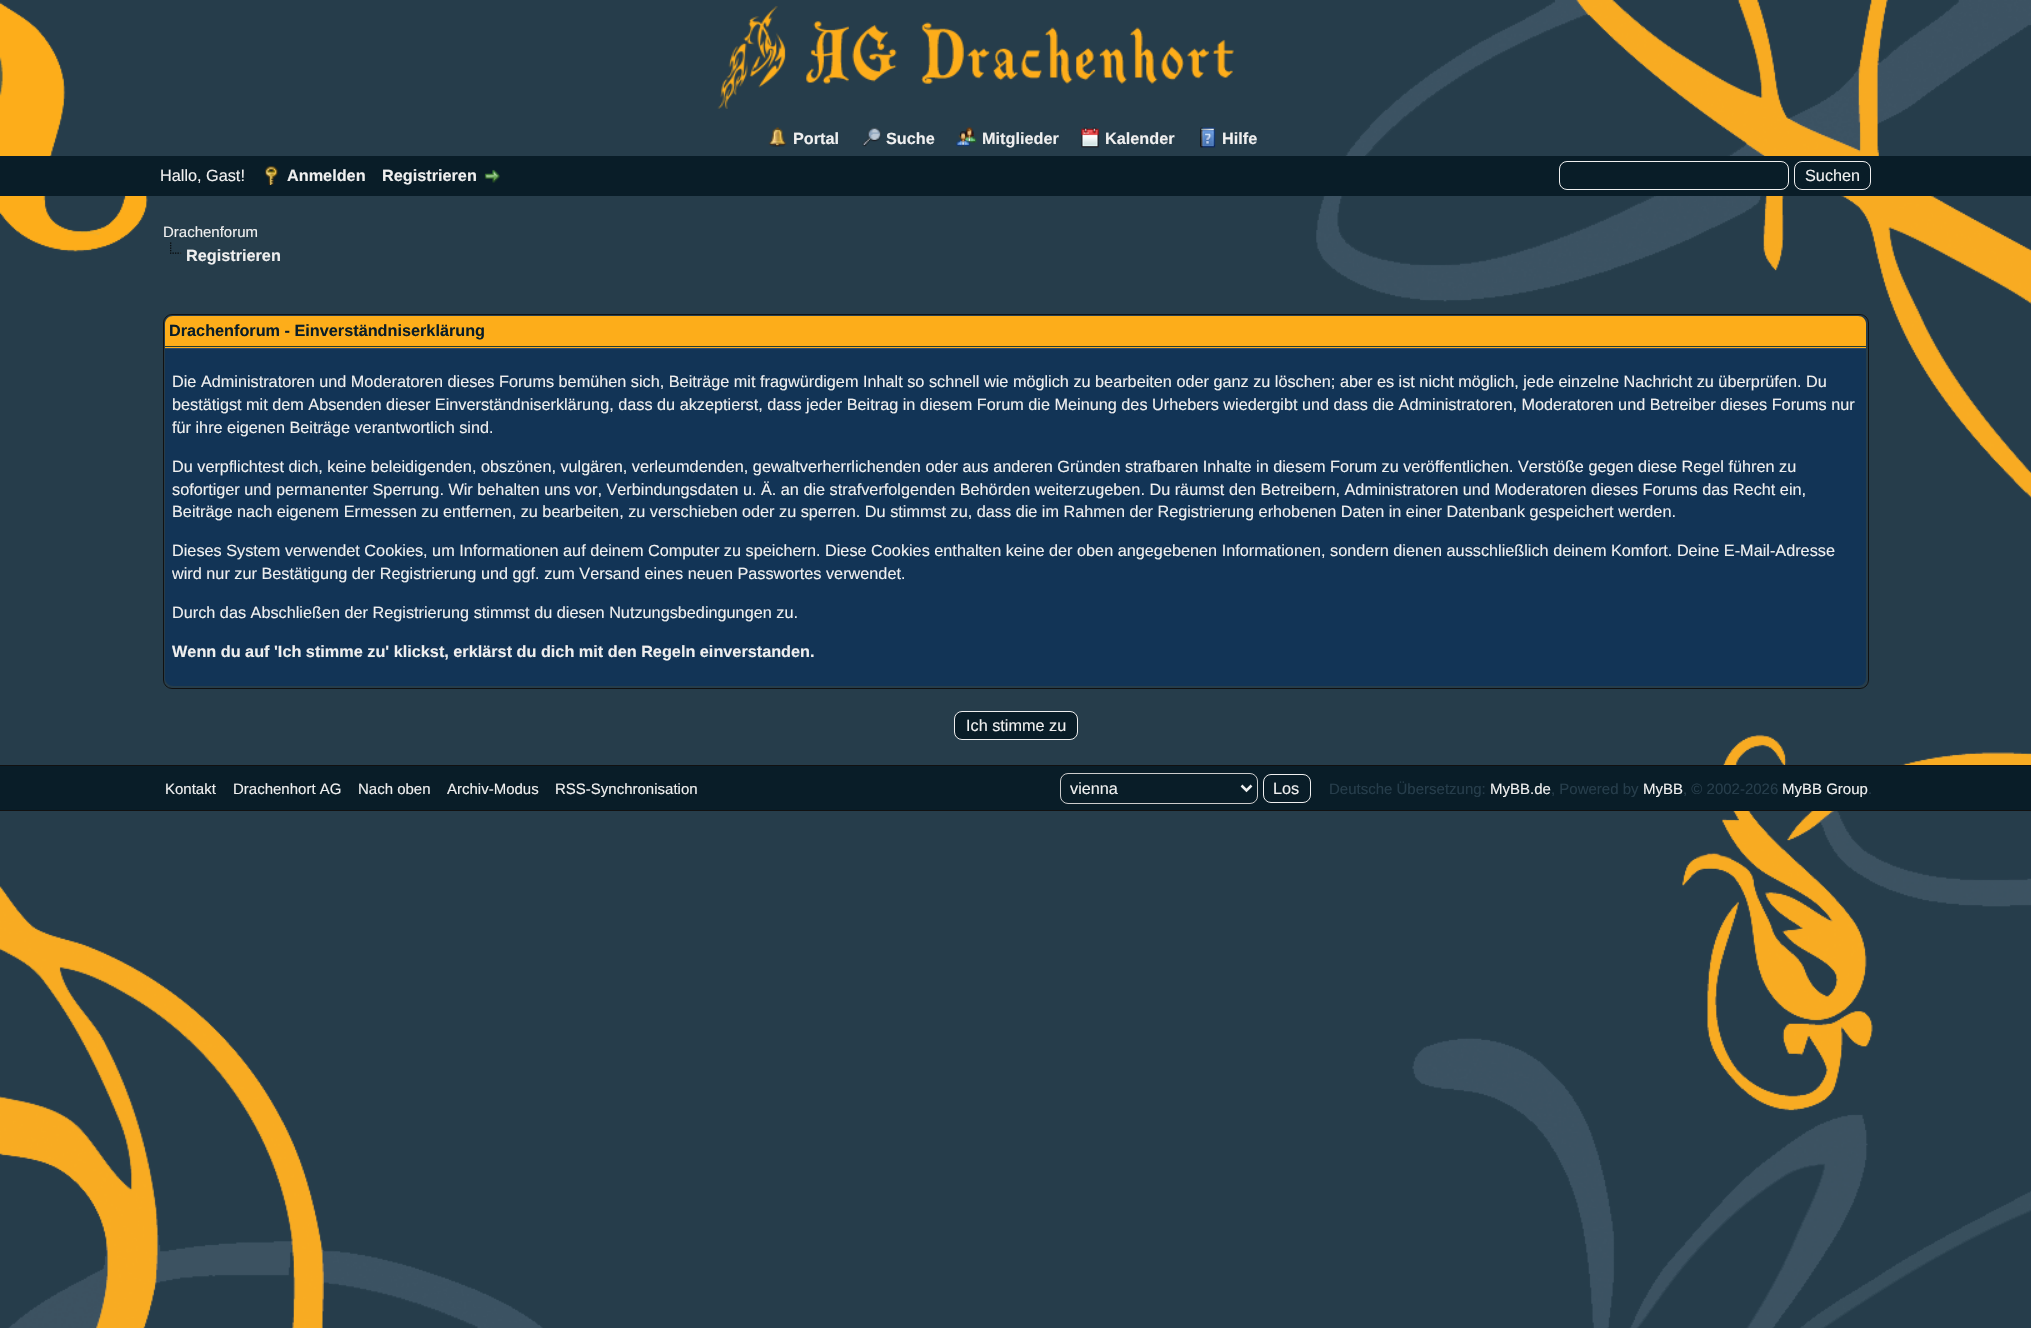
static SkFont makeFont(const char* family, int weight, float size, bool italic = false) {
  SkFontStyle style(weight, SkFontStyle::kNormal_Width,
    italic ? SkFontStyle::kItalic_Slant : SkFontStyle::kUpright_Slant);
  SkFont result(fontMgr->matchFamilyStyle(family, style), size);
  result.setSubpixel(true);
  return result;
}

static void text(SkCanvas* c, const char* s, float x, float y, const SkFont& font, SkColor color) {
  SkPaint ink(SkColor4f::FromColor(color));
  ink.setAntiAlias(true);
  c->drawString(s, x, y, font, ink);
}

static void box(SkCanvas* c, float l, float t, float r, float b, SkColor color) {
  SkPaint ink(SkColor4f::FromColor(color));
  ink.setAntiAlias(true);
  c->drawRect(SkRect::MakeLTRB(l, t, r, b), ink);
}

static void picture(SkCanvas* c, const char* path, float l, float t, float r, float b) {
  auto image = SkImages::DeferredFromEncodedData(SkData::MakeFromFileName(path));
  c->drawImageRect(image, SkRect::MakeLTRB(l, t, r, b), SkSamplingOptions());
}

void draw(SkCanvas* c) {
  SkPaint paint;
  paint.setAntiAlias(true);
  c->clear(0xff263d4b);
  picture(c, "img_01.png", 0, 2, 148, 252);
  picture(c, "img_02.png", 1316, 0, 2031, 498);
  picture(c, "img_03.png", 717, 6, 1234, 109);
  picture(c, "img_04.png", 768, 127, 787, 147);
  SkFont face1 = makeFont("Liberation Sans", 700, 16.25f);
  text(c, "Portal", 793, 144, face1, 0xffefefef);
  picture(c, "img_05.png", 862, 127, 882, 147);
  text(c, "Suche", 886, 144, face1, 0xffefefef);
  picture(c, "img_06.png", 956, 127, 977, 147);
  text(c, "Mitglieder", 982, 144, face1, 0xffefefef);
  picture(c, "img_07.png", 1081, 127, 1099, 148);
  text(c, "Kalender", 1105, 144, face1, 0xffefefef);
  picture(c, "img_08.png", 1200, 127, 1216, 148);
  text(c, "Hilfe", 1222, 144, face1, 0xffefefef);
  box(c, 0, 156, 2031, 196, 0xff091d28);
  SkFont face2 = makeFont("Liberation Sans", 400, 16.25f);
  text(c, "Hallo, Gast!", 160, 181, face2, 0xffefefef);
  picture(c, "img_09.png", 265, 166, 278, 185);
  text(c, "Anmelden", 287, 181, face1, 0xffefefef);
  text(c, "Registrieren", 382, 181, face1, 0xffefefef);
  picture(c, "img_10.png", 484, 169, 500, 183);
  paint.setStyle(SkPaint::kStroke_Style);
  paint.setStrokeWidth(1);
  paint.setColor(0xffefefef);
  c->drawRoundRect(SkRect::MakeLTRB(1559.5f, 161.5f, 1788.5f, 189.5f), 7.5f, 7.5f, paint);
  c->drawRoundRect(SkRect::MakeLTRB(1794.5f, 161.5f, 1870.5f, 189.5f), 7.5f, 7.5f, paint);
  text(c, "Suchen", 1805, 181, face2, 0xffefefef);
  SkFont face3 = makeFont("Liberation Sans", 400, 15);
  text(c, "Drachenforum", 163, 237, face3, 0xffefefef);
  picture(c, "img_11.png", 170, 242, 182, 254);
  text(c, "Registrieren", 186, 261, face1, 0xffefefef);
  paint.setColor(0xff111111);
  c->drawRoundRect(SkRect::MakeLTRB(163.5f, 314.5f, 1868.5f, 688.5f), 8.5f, 8.5f, paint);
  paint.setStyle(SkPaint::kFill_Style);
  paint.setColor(0xfffdad1a);
  c->drawPath(SkPathBuilder().moveTo(173, 316).lineTo(1858, 316).cubicTo(1862.5f, 316, 1866, 319.5f, 1866, 324).lineTo(1866, 348).lineTo(165, 348).lineTo(165, 324).cubicTo(165, 319.5f, 168.5f, 316, 173, 316).close().detach(), paint);
  box(c, 165, 346, 1866, 347, 0xff263c30);
  text(c, "Drachenforum - Einverständniserklärung", 169, 336, face1, 0xff091d28);
  paint.setColor(0xff123456);
  c->drawPath(SkPathBuilder().moveTo(165, 348).lineTo(1866, 348).lineTo(1866, 678).cubicTo(1866, 682.5f, 1862.5f, 686, 1858, 686).lineTo(173, 686).cubicTo(168.5f, 686, 165, 682.5f, 165, 678).close().detach(), paint);
  box(c, 165, 348, 1866, 349, 0xff2c4a69);
  text(c, "Die Administratoren und Moderatoren dieses Forums bemühen sich, Beiträge mit fragwürdigem Inhalt so schnell wie möglich zu bearbeiten oder ganz zu löschen; aber es ist nicht möglich, jede einzelne Nachricht zu überprüfen. Du", 172, 387, face2, 0xffefefef);
  text(c, "bestätigst mit dem Absenden dieser Einverständniserklärung, dass du akzeptierst, dass jeder Beitrag in diesem Forum die Meinung des Urhebers wiedergibt und dass die Administratoren, Moderatoren und Betreiber dieses Forums nur", 172, 410, face2, 0xffefefef);
  text(c, "für ihre eigenen Beiträge verantwortlich sind.", 172, 433, face2, 0xffefefef);
  text(c, "Du verpflichtest dich, keine beleidigenden, obszönen, vulgären, verleumdenden, gewaltverherrlichenden oder aus anderen Gründen strafbaren Inhalte in diesem Forum zu veröffentlichen. Verstöße gegen diese Regel führen zu", 172, 472, face2, 0xffefefef);
  text(c, "sofortiger und permanenter Sperrung. Wir behalten uns vor, Verbindungsdaten u. Ä. an die strafverfolgenden Behörden weiterzugeben. Du räumst den Betreibern, Administratoren und Moderatoren dieses Forums das Recht ein,", 172, 495, face2, 0xffefefef);
  text(c, "Beiträge nach eigenem Ermessen zu entfernen, zu bearbeiten, zu verschieben oder zu sperren. Du stimmst zu, dass die im Rahmen der Registrierung erhobenen Daten in einer Datenbank gespeichert werden.", 172, 517, face2, 0xffefefef);
  text(c, "Dieses System verwendet Cookies, um Informationen auf deinem Computer zu speichern. Diese Cookies enthalten keine der oben angegebenen Informationen, sondern dienen ausschließlich deinem Komfort. Deine E-Mail-Adresse", 172, 556, face2, 0xffefefef);
  text(c, "wird nur zur Bestätigung der Registrierung und ggf. zum Versand eines neuen Passwortes verwendet.", 172, 579, face2, 0xffefefef);
  text(c, "Durch das Abschließen der Registrierung stimmst du diesen Nutzungsbedingungen zu.", 172, 618, face2, 0xffefefef);
  text(c, "Wenn du auf 'Ich stimme zu' klickst, erklärst du dich mit den Regeln einverstanden.", 172, 657, face1, 0xffefefef);
  paint.setColor(0xff091d28);
  c->drawRoundRect(SkRect::MakeLTRB(954.5f, 711.5f, 1077.5f, 739.5f), 7.5f, 7.5f, paint);
  paint.setStyle(SkPaint::kStroke_Style);
  paint.setColor(0xffefefef);
  c->drawRoundRect(SkRect::MakeLTRB(954.5f, 711.5f, 1077.5f, 739.5f), 7.5f, 7.5f, paint);
  text(c, "Ich stimme zu", 966, 731, face2, 0xffefefef);
  picture(c, "img_13.png", 1412, 734, 2031, 1328);
  box(c, 0, 766, 2031, 810, 0xff091d28);
  box(c, 0, 765, 2031, 766, 0xff111111);
  box(c, 0, 810, 2031, 811, 0xff111111);
  text(c, "Kontakt", 165, 794, face3, 0xffefefef);
  text(c, "Drachenhort AG", 233, 794, face3, 0xffefefef);
  text(c, "Nach oben", 358, 794, face3, 0xffefefef);
  text(c, "Archiv-Modus", 447, 794, face3, 0xffefefef);
  text(c, "RSS-Synchronisation", 555, 794, face3, 0xffefefef);
  paint.setColor(0xffcccccc);
  c->drawRoundRect(SkRect::MakeLTRB(1060.5f, 773.5f, 1257.5f, 803.5f), 7.5f, 7.5f, paint);
  paint.setStrokeWidth(2.5f);
  paint.setColor(0xffefefef);
  c->drawPath(SkPathBuilder().moveTo(1241.5f, 785.5f).lineTo(1246.5f, 790.5f).lineTo(1251.5f, 785.5f).detach(), paint);
  text(c, "vienna", 1070, 794, face2, 0xffefefef);
  paint.setStrokeWidth(1);
  c->drawRoundRect(SkRect::MakeLTRB(1263.5f, 774.5f, 1310.5f, 802.5f), 7.5f, 7.5f, paint);
  text(c, "Los", 1273, 794, face2, 0xffefefef);
  text(c, "Deutsche Übersetzung:", 1329, 794, face3, 0xff263d4b);
  text(c, "MyBB.de", 1490, 794, face3, 0xffefefef);
  text(c, ", Powered by", 1551, 794, face3, 0xff263d4b);
  text(c, "MyBB", 1643, 794, face3, 0xffefefef);
  text(c, ", © 2002-2026", 1683, 794, face3, 0xff263d4b);
  text(c, "MyBB Group", 1782, 794, face3, 0xffefefef);
  text(c, ".", 1868, 794, face3, 0xff263d4b);
  picture(c, "img_12.png", 0, 886, 543, 1328);
}
